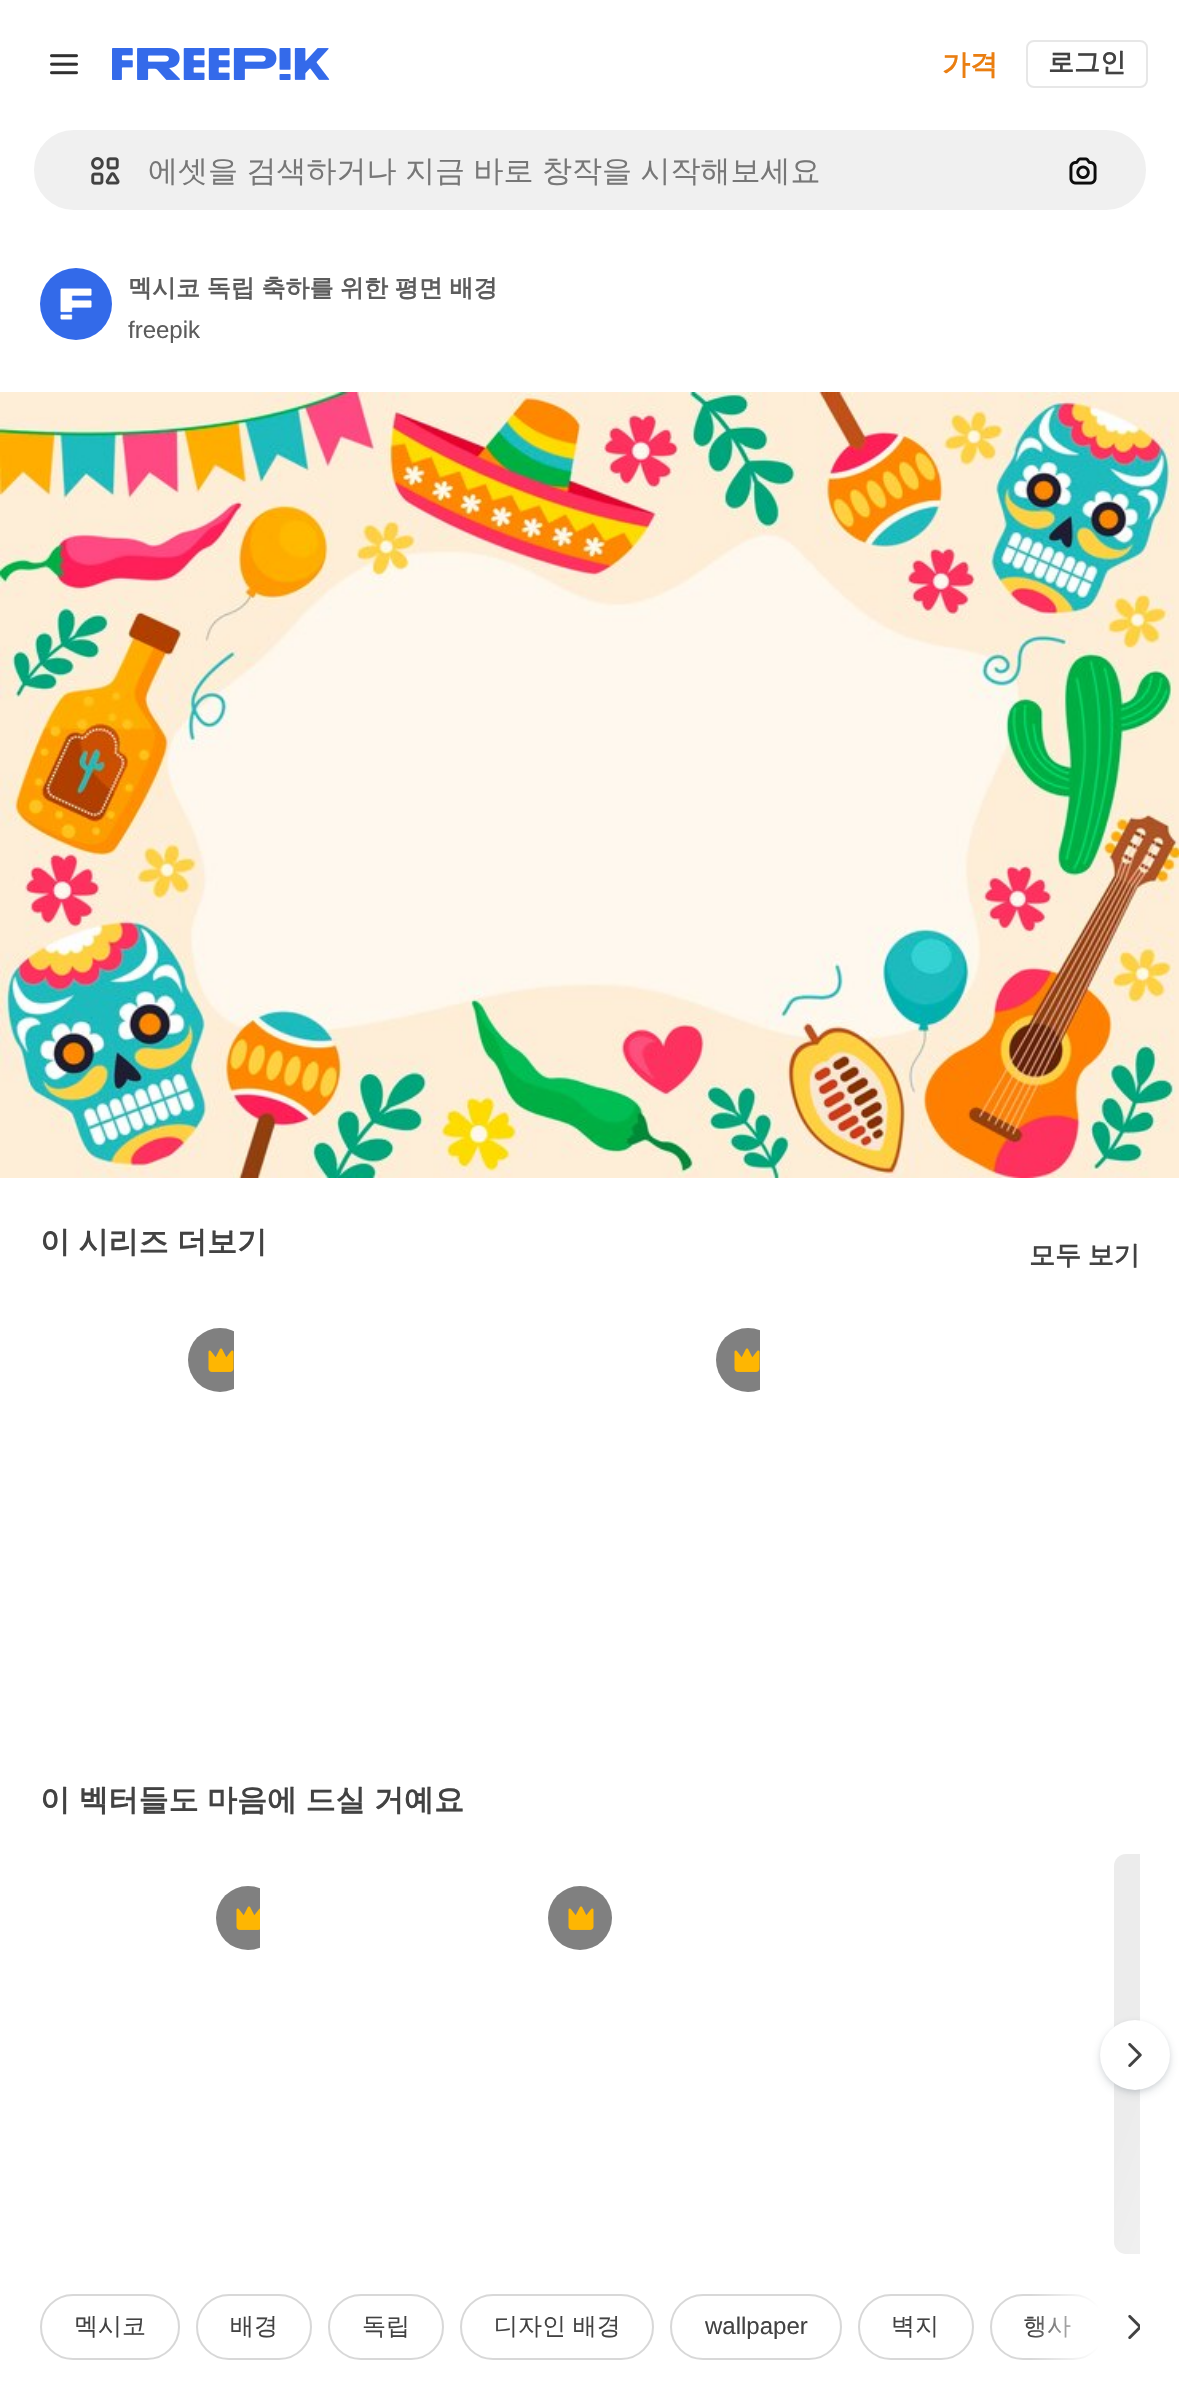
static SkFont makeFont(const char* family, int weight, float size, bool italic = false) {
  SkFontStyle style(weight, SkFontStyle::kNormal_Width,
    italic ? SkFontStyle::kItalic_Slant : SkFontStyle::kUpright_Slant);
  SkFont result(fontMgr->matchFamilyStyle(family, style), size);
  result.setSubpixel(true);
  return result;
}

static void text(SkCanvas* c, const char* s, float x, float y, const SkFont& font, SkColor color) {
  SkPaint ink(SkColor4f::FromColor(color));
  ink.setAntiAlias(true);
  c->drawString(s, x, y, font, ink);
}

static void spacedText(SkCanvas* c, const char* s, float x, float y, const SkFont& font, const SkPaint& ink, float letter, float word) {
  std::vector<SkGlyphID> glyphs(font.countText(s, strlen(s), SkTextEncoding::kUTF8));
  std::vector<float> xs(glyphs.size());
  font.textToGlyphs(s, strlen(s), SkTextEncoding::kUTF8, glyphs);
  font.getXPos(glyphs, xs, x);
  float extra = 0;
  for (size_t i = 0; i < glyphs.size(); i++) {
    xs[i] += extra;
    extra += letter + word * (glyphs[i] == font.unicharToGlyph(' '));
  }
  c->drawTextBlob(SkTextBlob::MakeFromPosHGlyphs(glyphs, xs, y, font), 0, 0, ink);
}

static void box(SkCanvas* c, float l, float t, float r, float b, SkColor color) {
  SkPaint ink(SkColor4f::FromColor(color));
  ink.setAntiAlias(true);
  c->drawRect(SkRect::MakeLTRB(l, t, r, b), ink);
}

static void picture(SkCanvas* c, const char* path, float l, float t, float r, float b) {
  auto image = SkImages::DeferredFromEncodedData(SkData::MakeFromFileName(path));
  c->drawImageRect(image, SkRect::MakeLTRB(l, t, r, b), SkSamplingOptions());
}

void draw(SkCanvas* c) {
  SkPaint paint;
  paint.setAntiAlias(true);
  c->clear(0xffffffff);
  picture(c, "img_01.png", 50, 54, 78, 75);
  picture(c, "img_02.png", 112, 48, 330, 80);
  SkFont face1 = makeFont("WenQuanYi Zen Hei", 700, 28);
  text(c, "가격", 942, 74, face1, 0xffea7e11);
  paint.setStyle(SkPaint::kStroke_Style);
  paint.setStrokeWidth(2);
  paint.setColor(0xffe7e7e7);
  c->drawRoundRect(SkRect::MakeLTRB(1027, 41, 1147, 87), 7, 7, paint);
  SkFont face2 = makeFont("WenQuanYi Zen Hei", 700, 26);
  text(c, "로그인", 1048, 71, face2, 0xff424242);
  paint.setStyle(SkPaint::kFill_Style);
  paint.setColor(0xfff0f0f0);
  c->drawRoundRect(SkRect::MakeLTRB(33, 129, 1147, 211), 41, 41, paint);
  paint.setStyle(SkPaint::kStroke_Style);
  paint.setColor(0xffffffff);
  c->drawRoundRect(SkRect::MakeLTRB(33, 129, 1147, 211), 41, 41, paint);
  picture(c, "img_03.png", 91, 157, 120, 185);
  SkFont face3 = makeFont("WenQuanYi Zen Hei", 500, 30);
  paint.setStyle(SkPaint::kFill_Style);
  paint.setColor(0xff777777);
  spacedText(c, "에셋을 검색하거나 지금 바로 창작을 시작해보세요", 148, 181, face3, paint, 0, -0.5f);
  picture(c, "img_04.png", 1069, 157, 1097, 185);
  picture(c, "img_05.png", 40, 268, 112, 340);
  SkFont face4 = makeFont("WenQuanYi Zen Hei", 700, 24);
  paint.setColor(0xff5c5c5c);
  spacedText(c, "멕시코 독립 축하를 위한 평면 배경", 128, 296, face4, paint, 0, -0.5f);
  SkFont face5 = makeFont("Liberation Sans", 400, 24);
  text(c, "freepik", 128, 338, face5, 0xff5c5c5c);
  picture(c, "img_06.png", 0, 392, 1179, 1178);
  SkFont face6 = makeFont("WenQuanYi Zen Hei", 700, 30);
  paint.setColor(0xff424242);
  spacedText(c, "이 시리즈 더보기", 40, 1252, face6, paint, 0, -0.5f);
  spacedText(c, "모두 보기", 1029, 1264, face2, paint, 0, -1);
  c->save();
  c->clipPath(SkPathBuilder().moveTo(188, 1296).lineTo(202, 1296).cubicTo(219.5f, 1296, 234, 1310.5f, 234, 1328).lineTo(234, 1664).cubicTo(234, 1681.5f, 219.5f, 1696, 202, 1696).lineTo(188, 1696).cubicTo(170.5f, 1696, 156, 1681.5f, 156, 1664).lineTo(156, 1328).cubicTo(156, 1310.5f, 170.5f, 1296, 188, 1296).close().detach(), true);
  paint.setColor(0xff808080);
  c->drawCircle(220, 1360, 32, paint);
  c->restore();
  picture(c, "img_07.png", 208, 1348, 234, 1372);
  c->save();
  c->clipPath(SkPathBuilder().moveTo(716, 1296).lineTo(728, 1296).cubicTo(745.5f, 1296, 760, 1310.5f, 760, 1328).lineTo(760, 1664).cubicTo(760, 1681.5f, 745.5f, 1696, 728, 1696).lineTo(716, 1696).cubicTo(698.5f, 1696, 684, 1681.5f, 684, 1664).lineTo(684, 1328).cubicTo(684, 1310.5f, 698.5f, 1296, 716, 1296).close().detach(), true);
  c->drawCircle(748, 1360, 32, paint);
  c->restore();
  picture(c, "img_07.png", 734, 1348, 760, 1372);
  paint.setColor(0xff424242);
  spacedText(c, "이 벡터들도 마음에 드실 거예요", 40, 1810, face6, paint, 0, -0.5f);
  c->save();
  c->clipPath(SkPathBuilder().moveTo(216, 1854).lineTo(228, 1854).cubicTo(245.5f, 1854, 260, 1868.5f, 260, 1886).lineTo(260, 2222).cubicTo(260, 2239.5f, 245.5f, 2254, 228, 2254).lineTo(216, 2254).cubicTo(198.5f, 2254, 184, 2239.5f, 184, 2222).lineTo(184, 1886).cubicTo(184, 1868.5f, 198.5f, 1854, 216, 1854).close().detach(), true);
  paint.setColor(0xff808080);
  c->drawCircle(248, 1918, 32, paint);
  c->restore();
  picture(c, "img_08.png", 236, 1906, 260, 1930);
  c->drawCircle(580, 1918, 32, paint);
  picture(c, "img_07.png", 568, 1906, 594, 1930);
  {
    const SkColor colors[] = {0xffececec, 0xfff5f5f5, 0xffececec};
    const float stops[] = {0.08f, 0.18f, 0.33f};
    const SkPoint ends[] = {{1120, 1838}, {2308, 2270}};
    paint.setShader(SkGradientShader::MakeLinear(ends, colors, stops, 3, SkTileMode::kClamp));
    paint.setAlpha(255);
  }
  c->drawPath(SkPathBuilder().moveTo(1126, 1854).lineTo(1140, 1854).lineTo(1140, 2254).lineTo(1126, 2254).cubicTo(1119.5f, 2254, 1114, 2248.5f, 1114, 2242).lineTo(1114, 1866).cubicTo(1114, 1859.5f, 1119.5f, 1854, 1126, 1854).close().detach(), paint);
  paint.setShader(nullptr);
  paint.setColor(0x26374957);
  paint.setMaskFilter(SkMaskFilter::MakeBlur(kNormal_SkBlurStyle, 5));
  c->drawRoundRect(SkRect::MakeLTRB(1100, 2024, 1170, 2094), 35, 35, paint);
  paint.setMaskFilter(nullptr);
  paint.setColor(0x1a374957);
  paint.setMaskFilter(SkMaskFilter::MakeBlur(kNormal_SkBlurStyle, 2));
  c->drawRoundRect(SkRect::MakeLTRB(1100, 2022, 1170, 2092), 35, 35, paint);
  paint.setMaskFilter(nullptr);
  paint.setColor(0xffffffff);
  c->drawCircle(1135, 2055, 35, paint);
  picture(c, "img_09.png", 1128, 2042, 1142, 2068);
  paint.setStyle(SkPaint::kStroke_Style);
  paint.setColor(0xffd8d8d8);
  c->drawRoundRect(SkRect::MakeLTRB(41, 2295, 179, 2359), 32, 32, paint);
  SkFont face7 = makeFont("WenQuanYi Zen Hei", 500, 24);
  text(c, "멕시코", 74, 2334, face7, 0xff424242);
  c->drawRoundRect(SkRect::MakeLTRB(197, 2295, 311, 2359), 32, 32, paint);
  text(c, "배경", 230, 2334, face7, 0xff424242);
  c->drawRoundRect(SkRect::MakeLTRB(329, 2295, 443, 2359), 32, 32, paint);
  text(c, "독립", 362, 2334, face7, 0xff424242);
  c->drawRoundRect(SkRect::MakeLTRB(461, 2295, 653, 2359), 32, 32, paint);
  paint.setStyle(SkPaint::kFill_Style);
  paint.setColor(0xff424242);
  spacedText(c, "디자인 배경", 494, 2334, face7, paint, 0, -0.5f);
  paint.setStyle(SkPaint::kStroke_Style);
  paint.setColor(0xffd8d8d8);
  c->drawRoundRect(SkRect::MakeLTRB(671, 2295, 841, 2359), 32, 32, paint);
  text(c, "wallpaper", 705, 2334, face5, 0xff424242);
  c->drawRoundRect(SkRect::MakeLTRB(859, 2295, 973, 2359), 32, 32, paint);
  text(c, "벽지", 891, 2334, face7, 0xff424242);
  c->drawRoundRect(SkRect::MakeLTRB(991, 2295, 1105, 2359), 32, 32, paint);
  text(c, "행사", 1023, 2334, face7, 0xff424242);
  box(c, 1100, 2308, 1106, 2346, 0xffffffff);
  paint.setStyle(SkPaint::kFill_Style);
  {
    const SkColor colors[] = {0xffffffff, 0x00ffffff};
    const float stops[] = {0, 1};
    const SkPoint ends[] = {{1100, 2327}, {1030, 2327}};
    paint.setShader(SkGradientShader::MakeLinear(ends, colors, stops, 2, SkTileMode::kClamp));
    paint.setAlpha(255);
  }
  c->drawRect(SkRect::MakeLTRB(1032, 2294, 1100, 2360), paint);
  picture(c, "img_10.png", 1128, 2314, 1140, 2340);
}
